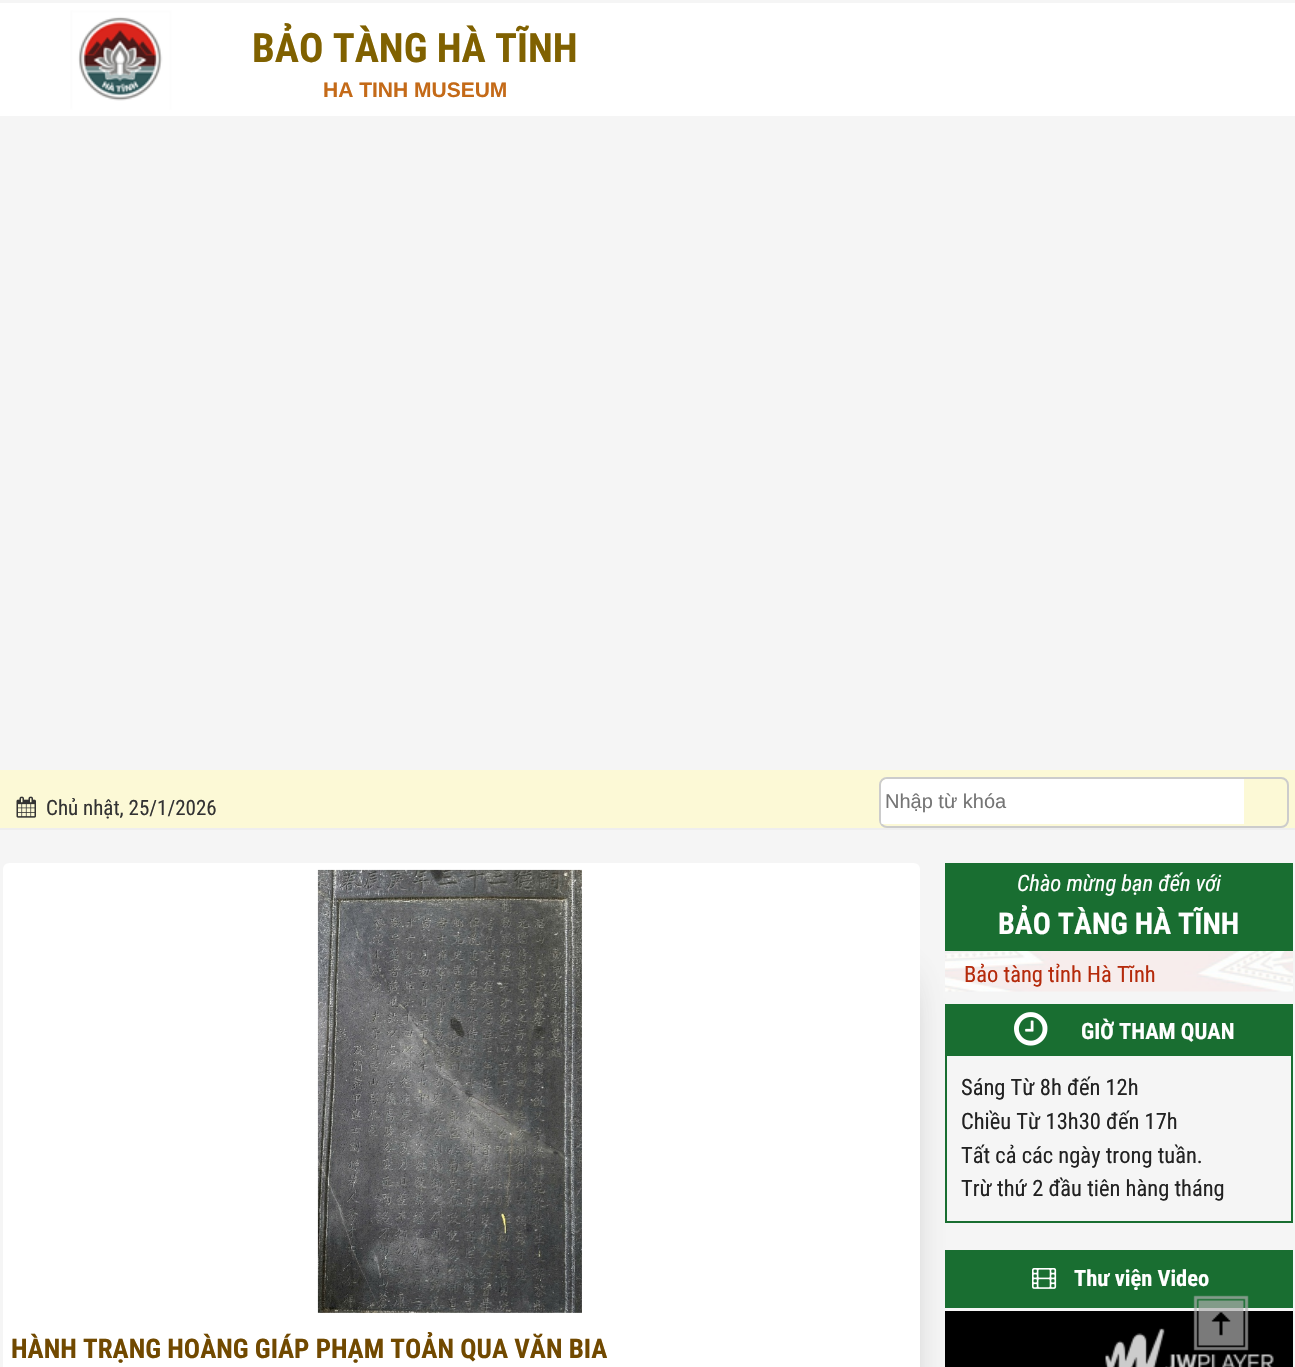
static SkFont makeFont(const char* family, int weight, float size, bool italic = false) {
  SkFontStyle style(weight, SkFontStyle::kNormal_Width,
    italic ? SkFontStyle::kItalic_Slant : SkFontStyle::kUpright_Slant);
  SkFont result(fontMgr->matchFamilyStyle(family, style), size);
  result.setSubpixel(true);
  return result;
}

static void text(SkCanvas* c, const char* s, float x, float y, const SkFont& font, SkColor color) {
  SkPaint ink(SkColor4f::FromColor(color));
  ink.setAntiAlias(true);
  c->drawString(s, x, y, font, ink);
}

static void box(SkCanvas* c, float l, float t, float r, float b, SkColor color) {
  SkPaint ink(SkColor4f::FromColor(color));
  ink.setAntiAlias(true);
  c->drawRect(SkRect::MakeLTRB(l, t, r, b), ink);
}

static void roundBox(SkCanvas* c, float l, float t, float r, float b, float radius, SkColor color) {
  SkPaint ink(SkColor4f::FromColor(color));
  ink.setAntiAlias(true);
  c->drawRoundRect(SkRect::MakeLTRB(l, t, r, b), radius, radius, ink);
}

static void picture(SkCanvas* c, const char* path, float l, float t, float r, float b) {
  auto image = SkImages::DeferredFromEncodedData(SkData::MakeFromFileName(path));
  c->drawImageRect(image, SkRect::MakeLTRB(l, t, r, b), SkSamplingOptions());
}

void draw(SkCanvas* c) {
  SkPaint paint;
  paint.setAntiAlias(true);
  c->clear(0xfff5f5f5);
  picture(c, "img_01.png", 0, 3, 1295, 116);
  SkFont face1 = makeFont("Roboto Condensed", 700, 40.5f);
  text(c, "BẢO TÀNG HÀ TĨNH", 252, 62, face1, 0xff806100);
  SkFont face2 = makeFont("Liberation Sans", 700, 21);
  text(c, "HA TINH MUSEUM", 323, 97, face2, 0xffc46a18);
  box(c, 0, 770, 1295, 828, 0xfffcf9d6);
  box(c, 0, 828, 1295, 830, 0xffeeeeee);
  picture(c, "img_02.png", 16, 796, 36, 818);
  SkFont face3 = makeFont("Roboto Condensed", 400, 21);
  text(c, "Chủ nhật, 25/1/2026", 46, 815, face3, 0xff333333);
  paint.setStyle(SkPaint::kStroke_Style);
  paint.setStrokeWidth(2);
  paint.setColor(0xffcccccc);
  c->drawRoundRect(SkRect::MakeLTRB(880, 778, 1288, 827), 7, 7, paint);
  c->save();
  c->clipPath(SkPathBuilder().moveTo(887, 779).lineTo(1281, 779).cubicTo(1284.5f, 779, 1287, 781.5f, 1287, 785).lineTo(1287, 821).cubicTo(1287, 824.5f, 1284.5f, 827, 1281, 827).lineTo(887, 827).cubicTo(883.5f, 827, 881, 824.5f, 881, 821).lineTo(881, 785).cubicTo(881, 781.5f, 883.5f, 779, 887, 779).close().detach(), true);
  paint.setStyle(SkPaint::kFill_Style);
  paint.setColor(0xffffffff);
  c->drawPath(SkPathBuilder().moveTo(887, 779).lineTo(1244, 779).lineTo(1244, 824).lineTo(881, 824).lineTo(881, 785).cubicTo(881, 781.5f, 883.5f, 779, 887, 779).close().detach(), paint);
  c->restore();
  SkFont face4 = makeFont("Liberation Sans", 400, 20);
  text(c, "Nhập từ khóa", 885, 808, face4, 0xff757575);
  paint.setColor(0xbf515151);
  paint.setMaskFilter(SkMaskFilter::MakeBlur(kNormal_SkBlurStyle, 20));
  c->drawRect(SkRect::MakeLTRB(98, 984, 897, 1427), paint);
  paint.setMaskFilter(nullptr);
  box(c, 945, 863, 1293, 951, 0xff196e31);
  SkFont face5 = makeFont("Roboto Condensed", 400, 22.5f, true);
  text(c, "Chào mừng bạn đến với", 1017, 891, face5, 0xffffffff);
  SkFont face6 = makeFont("Roboto Condensed", 700, 30);
  text(c, "BẢO TÀNG HÀ TĨNH", 998, 934, face6, 0xffffffff);
  picture(c, "img_03.png", 945, 951, 1293, 992);
  SkFont face7 = makeFont("Roboto Condensed", 400, 22.5f);
  text(c, "Bảo tàng tỉnh Hà Tĩnh", 964, 982, face7, 0xffb52a0b);
  paint.setStyle(SkPaint::kStroke_Style);
  paint.setColor(0xff196e31);
  c->drawRect(SkRect::MakeLTRB(946, 1005, 1292, 1222), paint);
  box(c, 947, 1006, 1291, 1056, 0xff196e31);
  picture(c, "img_04.png", 1014, 1012, 1048, 1046);
  SkFont face8 = makeFont("Roboto Condensed", 700, 22.5f);
  text(c, "GIỜ THAM QUAN", 1081, 1039, face8, 0xffffffff);
  text(c, "Sáng Từ 8h đến 12h", 961, 1095, face7, 0xff222222);
  text(c, "Chiều Từ 13h30 đến 17h", 961, 1129, face7, 0xff222222);
  text(c, "Tất cả các ngày trong tuần.", 961, 1163, face7, 0xff222222);
  text(c, "Trừ thứ 2 đầu tiên hàng tháng", 961, 1196, face7, 0xff222222);
  box(c, 945, 1250, 1293, 1308, 0xff196e31);
  picture(c, "img_05.png", 1032, 1268, 1057, 1289);
  text(c, "Thư viện Video", 1074, 1286, face8, 0xffffffff);
  box(c, 945, 1311, 1293, 1367, 0xff000000);
  picture(c, "img_06.png", 1105, 1328, 1274, 1367);
  roundBox(c, 3, 863, 920, 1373, 6, 0xffffffff);
  picture(c, "img_07.png", 317, 869, 582, 1313);
  SkFont face9 = makeFont("Roboto Condensed", 700, 27);
  text(c, "HÀNH TRẠNG HOÀNG GIÁP PHẠM TOẢN QUA VĂN BIA", 11, 1358, face9, 0xff714900);
  picture(c, "img_08.png", 1193, 1295, 1249, 1351);
}
